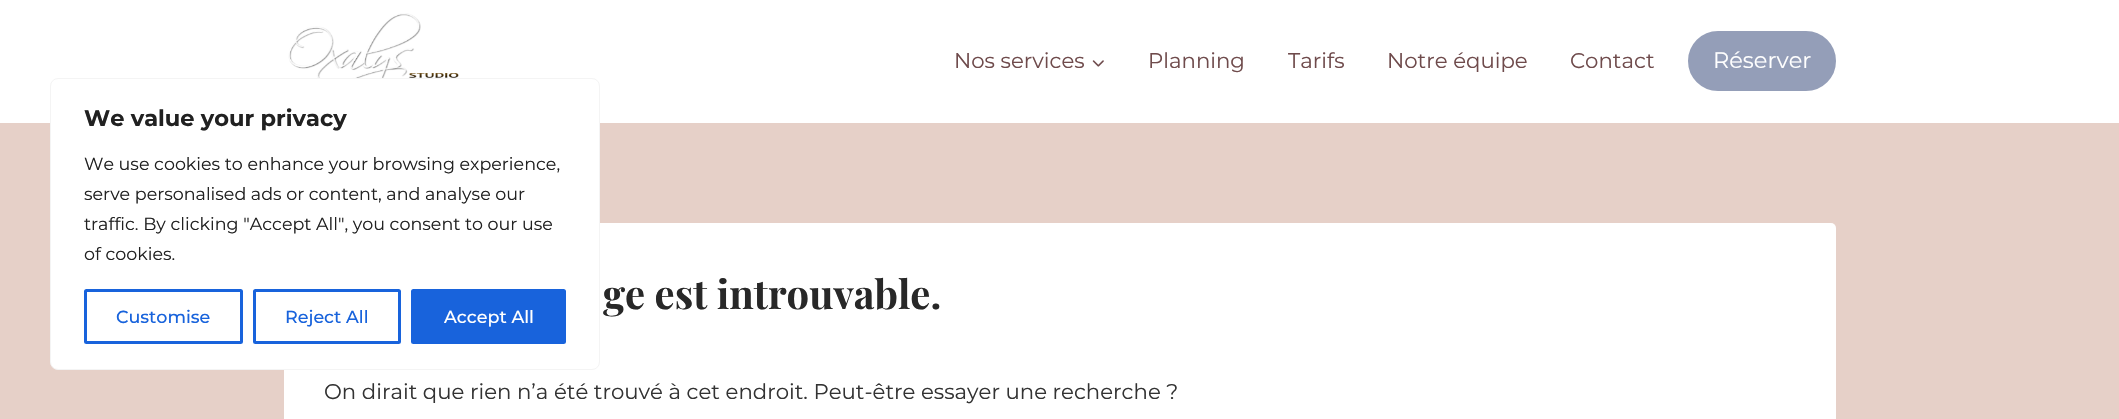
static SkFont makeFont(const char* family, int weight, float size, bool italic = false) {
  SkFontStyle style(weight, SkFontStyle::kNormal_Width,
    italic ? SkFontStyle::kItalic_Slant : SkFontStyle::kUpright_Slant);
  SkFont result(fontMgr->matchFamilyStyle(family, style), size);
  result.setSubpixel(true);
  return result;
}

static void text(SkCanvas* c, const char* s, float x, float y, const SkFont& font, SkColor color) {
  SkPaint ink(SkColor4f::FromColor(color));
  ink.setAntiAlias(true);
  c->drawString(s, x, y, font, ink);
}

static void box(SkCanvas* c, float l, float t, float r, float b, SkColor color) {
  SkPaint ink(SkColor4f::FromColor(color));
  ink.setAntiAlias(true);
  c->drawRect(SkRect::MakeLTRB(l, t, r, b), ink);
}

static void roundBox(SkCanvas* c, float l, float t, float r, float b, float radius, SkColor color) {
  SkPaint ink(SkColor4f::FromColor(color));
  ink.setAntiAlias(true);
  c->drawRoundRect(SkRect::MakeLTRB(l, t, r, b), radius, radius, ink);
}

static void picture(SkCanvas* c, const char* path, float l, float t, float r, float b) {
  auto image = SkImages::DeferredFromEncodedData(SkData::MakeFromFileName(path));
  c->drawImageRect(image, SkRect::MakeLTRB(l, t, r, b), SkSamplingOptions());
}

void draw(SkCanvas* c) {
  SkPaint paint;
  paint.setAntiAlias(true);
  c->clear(0xffe6d0c8);
  box(c, 0, 0, 2119, 123, 0xffffffff);
  roundBox(c, 284, 223, 1836, 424, 5, 0xffffffff);
  paint.setColor(0xffffffff);
  c->drawRoundRect(SkRect::MakeLTRB(50.5f, 78.5f, 599.5f, 369.5f), 7.5f, 7.5f, paint);
  paint.setStyle(SkPaint::kStroke_Style);
  paint.setStrokeWidth(1);
  paint.setColor(0xfff4f4f4);
  c->drawRoundRect(SkRect::MakeLTRB(50.5f, 78.5f, 599.5f, 369.5f), 7.5f, 7.5f, paint);
  SkFont face1 = makeFont("Montserrat", 700, 22.5f);
  text(c, "We value your privacy", 84, 126, face1, 0xff212121);
  SkFont face2 = makeFont("Montserrat", 400, 17.5f);
  text(c, "We use cookies to enhance your browsing experience,", 84, 170, face2, 0xff212121);
  text(c, "serve personalised ads or content, and analyse our", 84, 200, face2, 0xff212121);
  text(c, "traffic. By clicking \"Accept All\", you consent to our use", 84, 230, face2, 0xff212121);
  text(c, "of cookies.", 84, 260, face2, 0xff212121);
  paint.setStrokeWidth(3);
  paint.setColor(0xff1863dc);
  c->drawRoundRect(SkRect::MakeLTRB(85.5f, 290.5f, 241.5f, 342.5f), 1, 1, paint);
  SkFont face3 = makeFont("Montserrat", 500, 17.5f);
  text(c, "Customise", 116, 323, face3, 0xff1863dc);
  c->drawRoundRect(SkRect::MakeLTRB(254.5f, 290.5f, 399.5f, 342.5f), 1, 1, paint);
  text(c, "Reject All", 285, 323, face3, 0xff1863dc);
  paint.setStyle(SkPaint::kFill_Style);
  c->drawRoundRect(SkRect::MakeLTRB(412.5f, 290.5f, 564.5f, 342.5f), 1, 1, paint);
  paint.setStyle(SkPaint::kStroke_Style);
  c->drawRoundRect(SkRect::MakeLTRB(412.5f, 290.5f, 564.5f, 342.5f), 1, 1, paint);
  text(c, "Accept All", 444, 323, face3, 0xffffffff);
  picture(c, "img_01.png", 288, 13, 459, 78);
  SkFont face4 = makeFont("Montserrat", 400, 21.25f);
  text(c, "Nos services", 954, 68, face4, 0xff6f4b4c);
  picture(c, "img_02.png", 1092, 60, 1104, 67);
  text(c, "Planning", 1148, 68, face4, 0xff6f4b4c);
  text(c, "Tarifs", 1288, 68, face4, 0xff6f4b4c);
  text(c, "Notre équipe", 1387, 68, face4, 0xff6f4b4c);
  text(c, "Contact", 1570, 68, face4, 0xff6f4b4c);
  paint.setStyle(SkPaint::kFill_Style);
  paint.setColor(0xff949eb8);
  c->drawRoundRect(SkRect::MakeLTRB(1689.5f, 32.5f, 1834.5f, 89.5f), 28.5f, 28.5f, paint);
  paint.setStyle(SkPaint::kStroke_Style);
  c->drawRoundRect(SkRect::MakeLTRB(1689.5f, 32.5f, 1834.5f, 89.5f), 28.5f, 28.5f, paint);
  SkFont face5 = makeFont("Montserrat", 400, 22.5f);
  text(c, "Réserver", 1713, 68, face5, 0xffffffff);
  SkFont face6 = makeFont("Playfair Display", 700, 40);
  text(c, "ge est introuvable.", 603, 309, face6, 0xff282828);
  text(c, "On dirait que rien n’a été trouvé à cet endroit. Peut-être essayer une recherche ?", 324, 399, face4, 0xff333333);
}
